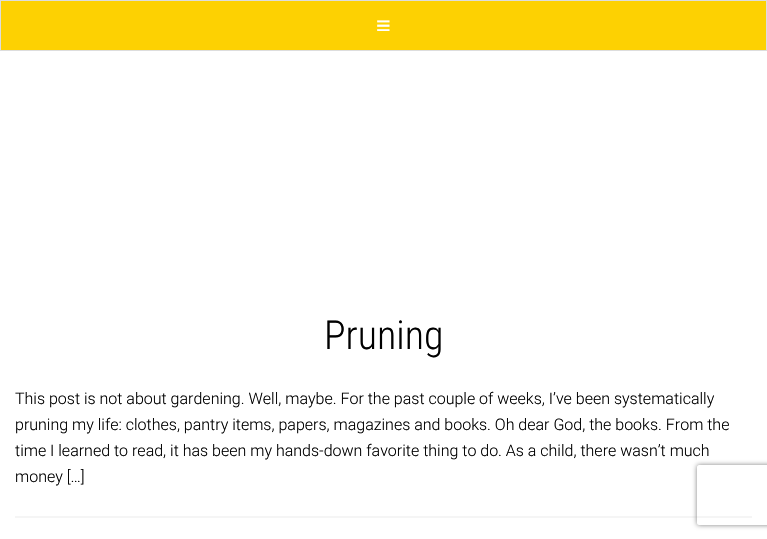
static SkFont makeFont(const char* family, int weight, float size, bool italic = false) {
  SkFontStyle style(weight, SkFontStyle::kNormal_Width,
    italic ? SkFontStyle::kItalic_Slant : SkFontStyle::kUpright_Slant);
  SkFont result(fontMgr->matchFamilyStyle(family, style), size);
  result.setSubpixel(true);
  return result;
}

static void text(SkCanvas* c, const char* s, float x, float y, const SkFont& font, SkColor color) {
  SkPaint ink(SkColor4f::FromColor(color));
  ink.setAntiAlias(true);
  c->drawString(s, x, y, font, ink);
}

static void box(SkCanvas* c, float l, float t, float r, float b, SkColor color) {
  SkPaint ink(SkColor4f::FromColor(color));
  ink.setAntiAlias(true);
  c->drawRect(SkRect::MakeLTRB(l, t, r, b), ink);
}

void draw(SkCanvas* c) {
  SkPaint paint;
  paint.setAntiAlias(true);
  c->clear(0xffffffff);
  paint.setColor(0xfffdd102);
  c->drawRect(SkRect::MakeLTRB(0.5f, 0.5f, 766.5f, 50.5f), paint);
  paint.setStyle(SkPaint::kStroke_Style);
  paint.setStrokeWidth(1);
  paint.setColor(0xffdddddd);
  c->drawRect(SkRect::MakeLTRB(0.5f, 0.5f, 766.5f, 50.5f), paint);
  SkFont face1 = makeFont("Liberation Sans", 400, 25);
  text(c, "≡", 376, 34, face1, 0xffffffff);
  SkFont face2 = makeFont("Roboto Condensed", 300, 40);
  text(c, "Pruning", 324, 349, face2, 0xff000000);
  SkFont face3 = makeFont("Roboto", 300, 16);
  text(c, "This post is not about gardening. Well, maybe. For the past couple of weeks, I’ve been systematically", 15, 404, face3, 0xff000000);
  text(c, "pruning my life: clothes, pantry items, papers, magazines and books. Oh dear God, the books. From the", 15, 430, face3, 0xff000000);
  text(c, "time I learned to read, it has been my hands-down favorite thing to do. As a child, there wasn’t much", 15, 456, face3, 0xff000000);
  text(c, "money […]", 15, 482, face3, 0xff000000);
  box(c, 15, 516, 752, 518, 0xfff5f5f5);
  c->save();
  c->clipPath(SkPathBuilder(SkPathFillType::kEvenOdd).moveTo(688, 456).lineTo(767, 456).lineTo(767, 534).lineTo(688, 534).close().moveTo(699, 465).lineTo(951, 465).cubicTo(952, 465, 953, 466, 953, 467).lineTo(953, 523).cubicTo(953, 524, 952, 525, 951, 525).lineTo(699, 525).cubicTo(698, 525, 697, 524, 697, 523).lineTo(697, 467).cubicTo(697, 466, 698, 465, 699, 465).close().detach(), true);
  paint.setStyle(SkPaint::kFill_Style);
  paint.setColor(0xff808080);
  paint.setMaskFilter(SkMaskFilter::MakeBlur(kNormal_SkBlurStyle, 2.5f));
  c->drawRoundRect(SkRect::MakeLTRB(697, 465, 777, 525), 2, 2, paint);
  paint.setMaskFilter(nullptr);
  c->restore();
}
